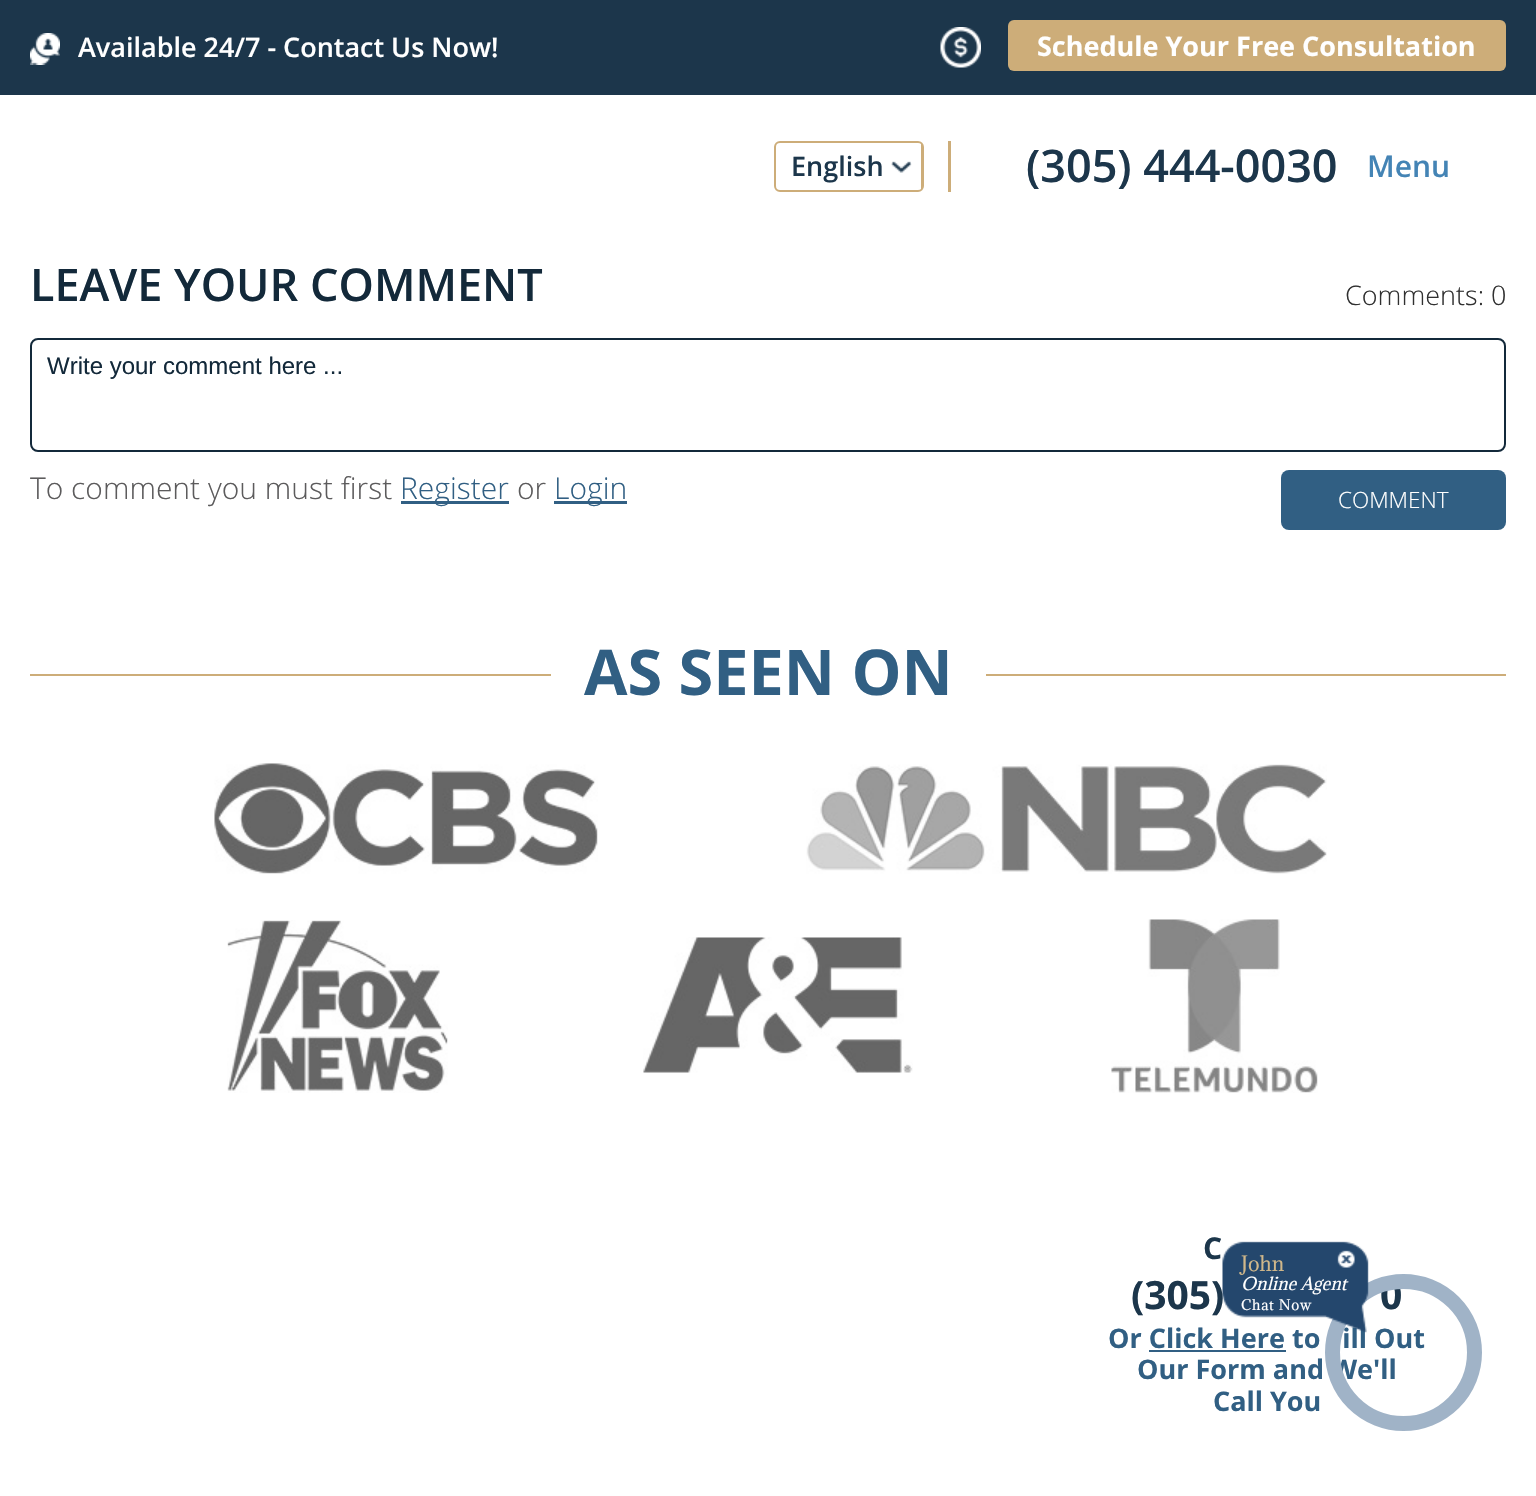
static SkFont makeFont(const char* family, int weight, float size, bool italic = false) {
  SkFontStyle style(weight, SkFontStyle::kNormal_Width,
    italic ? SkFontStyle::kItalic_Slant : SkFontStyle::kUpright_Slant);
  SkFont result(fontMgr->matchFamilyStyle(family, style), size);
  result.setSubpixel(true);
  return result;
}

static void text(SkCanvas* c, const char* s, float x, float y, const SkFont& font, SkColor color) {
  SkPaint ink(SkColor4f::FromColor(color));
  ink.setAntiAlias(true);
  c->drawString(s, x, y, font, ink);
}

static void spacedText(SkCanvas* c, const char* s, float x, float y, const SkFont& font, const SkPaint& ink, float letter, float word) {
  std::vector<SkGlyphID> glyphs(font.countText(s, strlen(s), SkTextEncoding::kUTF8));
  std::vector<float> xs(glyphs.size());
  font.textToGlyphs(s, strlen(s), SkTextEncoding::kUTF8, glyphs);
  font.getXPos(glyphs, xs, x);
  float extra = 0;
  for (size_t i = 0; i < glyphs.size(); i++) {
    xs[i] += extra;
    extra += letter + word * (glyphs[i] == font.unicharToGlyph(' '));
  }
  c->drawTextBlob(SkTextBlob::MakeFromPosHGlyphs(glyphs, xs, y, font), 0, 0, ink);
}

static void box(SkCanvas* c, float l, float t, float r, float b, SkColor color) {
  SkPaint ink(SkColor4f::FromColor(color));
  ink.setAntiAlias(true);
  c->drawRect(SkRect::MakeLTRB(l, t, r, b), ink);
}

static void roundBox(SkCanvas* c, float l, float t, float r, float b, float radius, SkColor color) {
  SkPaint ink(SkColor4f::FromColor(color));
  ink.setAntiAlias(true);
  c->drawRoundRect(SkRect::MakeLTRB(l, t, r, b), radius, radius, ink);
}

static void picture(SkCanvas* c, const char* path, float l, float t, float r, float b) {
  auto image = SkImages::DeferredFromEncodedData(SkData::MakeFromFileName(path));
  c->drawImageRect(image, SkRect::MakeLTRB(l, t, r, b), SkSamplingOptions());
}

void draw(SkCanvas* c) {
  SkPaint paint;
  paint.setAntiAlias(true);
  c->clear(0xffffffff);
  box(c, 0, 0, 1536, 95, 0xff1c364b);
  picture(c, "img_01.png", 30, 33, 60, 65);
  SkFont face1 = makeFont("Open Sans", 600, 27);
  text(c, "Available 24/7 - Contact Us Now!", 78, 57, face1, 0xffffffff);
  picture(c, "img_02.png", 940, 27, 981, 68);
  roundBox(c, 1008, 20, 1506, 71, 6, 0xffcdad79);
  SkFont face2 = makeFont("Open Sans", 700, 27);
  text(c, "Schedule Your Free Consultation", 1037, 56, face2, 0xffffffff);
  box(c, 948, 141, 951, 192, 0xffcdad79);
  picture(c, "img_03.png", 891, 161, 912, 173);
  paint.setStyle(SkPaint::kStroke_Style);
  paint.setStrokeWidth(2);
  paint.setColor(0xffcdad79);
  c->drawRoundRect(SkRect::MakeLTRB(775, 142, 923, 191), 5, 5, paint);
  box(c, 921, 144, 922, 189, 0xffcdad79);
  text(c, "English", 791, 176, face1, 0xff1c364b);
  SkFont face3 = makeFont("Open Sans", 600, 45);
  text(c, "(305) 444-0030", 1026, 182, face3, 0xff1c364b);
  SkFont face4 = makeFont("Open Sans", 600, 30);
  text(c, "Menu", 1367, 177, face4, 0xff4484b5);
  text(c, "LEAVE YOUR COMMENT", 30, 301, face3, 0xff13293a);
  SkFont face5 = makeFont("Open Sans", 300, 27);
  text(c, "Comments: 0", 1345, 305, face5, 0xff303030);
  paint.setColor(0xff13293a);
  c->drawRoundRect(SkRect::MakeLTRB(31, 339, 1505, 451), 7, 7, paint);
  SkFont face6 = makeFont("Liberation Sans", 400, 24);
  text(c, "Write your comment here ...", 47, 374, face6, 0xff13293a);
  roundBox(c, 1281, 470, 1506, 530, 8, 0xff315f83);
  SkFont face7 = makeFont("Open Sans", 300, 22.5f);
  text(c, "COMMENT", 1338, 508, face7, 0xffffffff);
  SkFont face8 = makeFont("Open Sans", 300, 30);
  text(c, "To comment you must first", 30, 499, face8, 0xff5c5b5c);
  box(c, 401, 501, 509, 504, 0xff315f83);
  text(c, "Register", 400, 499, face8, 0xff315f83);
  text(c, "or", 517, 499, face8, 0xff5c5b5c);
  box(c, 554, 501, 627, 504, 0xff315f83);
  text(c, "Login", 554, 499, face8, 0xff315f83);
  box(c, 30, 674, 1506, 676, 0xffcdad79);
  box(c, 551, 674, 986, 676, 0xffffffff);
  SkFont face9 = makeFont("Open Sans", 700, 63);
  text(c, "AS SEEN ON", 584, 695, face9, 0xff315f83);
  picture(c, "img_04.png", 214, 763, 598, 874);
  picture(c, "img_05.png", 806, 764, 1327, 874);
  picture(c, "img_06.png", 227, 920, 448, 1093);
  picture(c, "img_07.png", 643, 937, 913, 1073);
  picture(c, "img_08.png", 1111, 919, 1318, 1093);
  SkFont face10 = makeFont("Open Sans", 700, 30);
  text(c, "C", 1203, 1259, face10, 0xff1c364b);
  SkFont face11 = makeFont("Open Sans", 700, 39);
  text(c, "(305)", 1131, 1309, face11, 0xff1c364b);
  text(c, "0", 1380, 1309, face11, 0xff1c364b);
  text(c, "Or Click Here to Fill Out", 1108, 1348, face2, 0xff315f83);
  box(c, 1149, 1350, 1286, 1352, 0xff315f83);
  text(c, "Our Form and We'll", 1137, 1379, face2, 0xff315f83);
  text(c, "Call You", 1213, 1411, face2, 0xff315f83);
  paint.setStrokeWidth(15);
  paint.setColor(0xffa0b3c7);
  c->drawCircle(1403.5f, 1352.5f, 71, paint);
  picture(c, "img_10.png", 1222, 1241, 1369, 1333);
  picture(c, "img_09.png", 1337, 1250, 1355, 1268);
  SkFont face12 = makeFont("Adamina", 400, 19.5f);
  text(c, "John", 1241, 1271, face12, 0xffd0b78a);
  SkFont face13 = makeFont("Adamina", 400, 16.5f, true);
  paint.setStyle(SkPaint::kFill_Style);
  paint.setColor(0xffffffff);
  spacedText(c, "Online Agent", 1241, 1290, face13, paint, 0.1f, 0);
  SkFont face14 = makeFont("Adamina", 400, 13.5f);
  spacedText(c, "Chat Now", 1241, 1310, face14, paint, 0.75f, 0);
}
